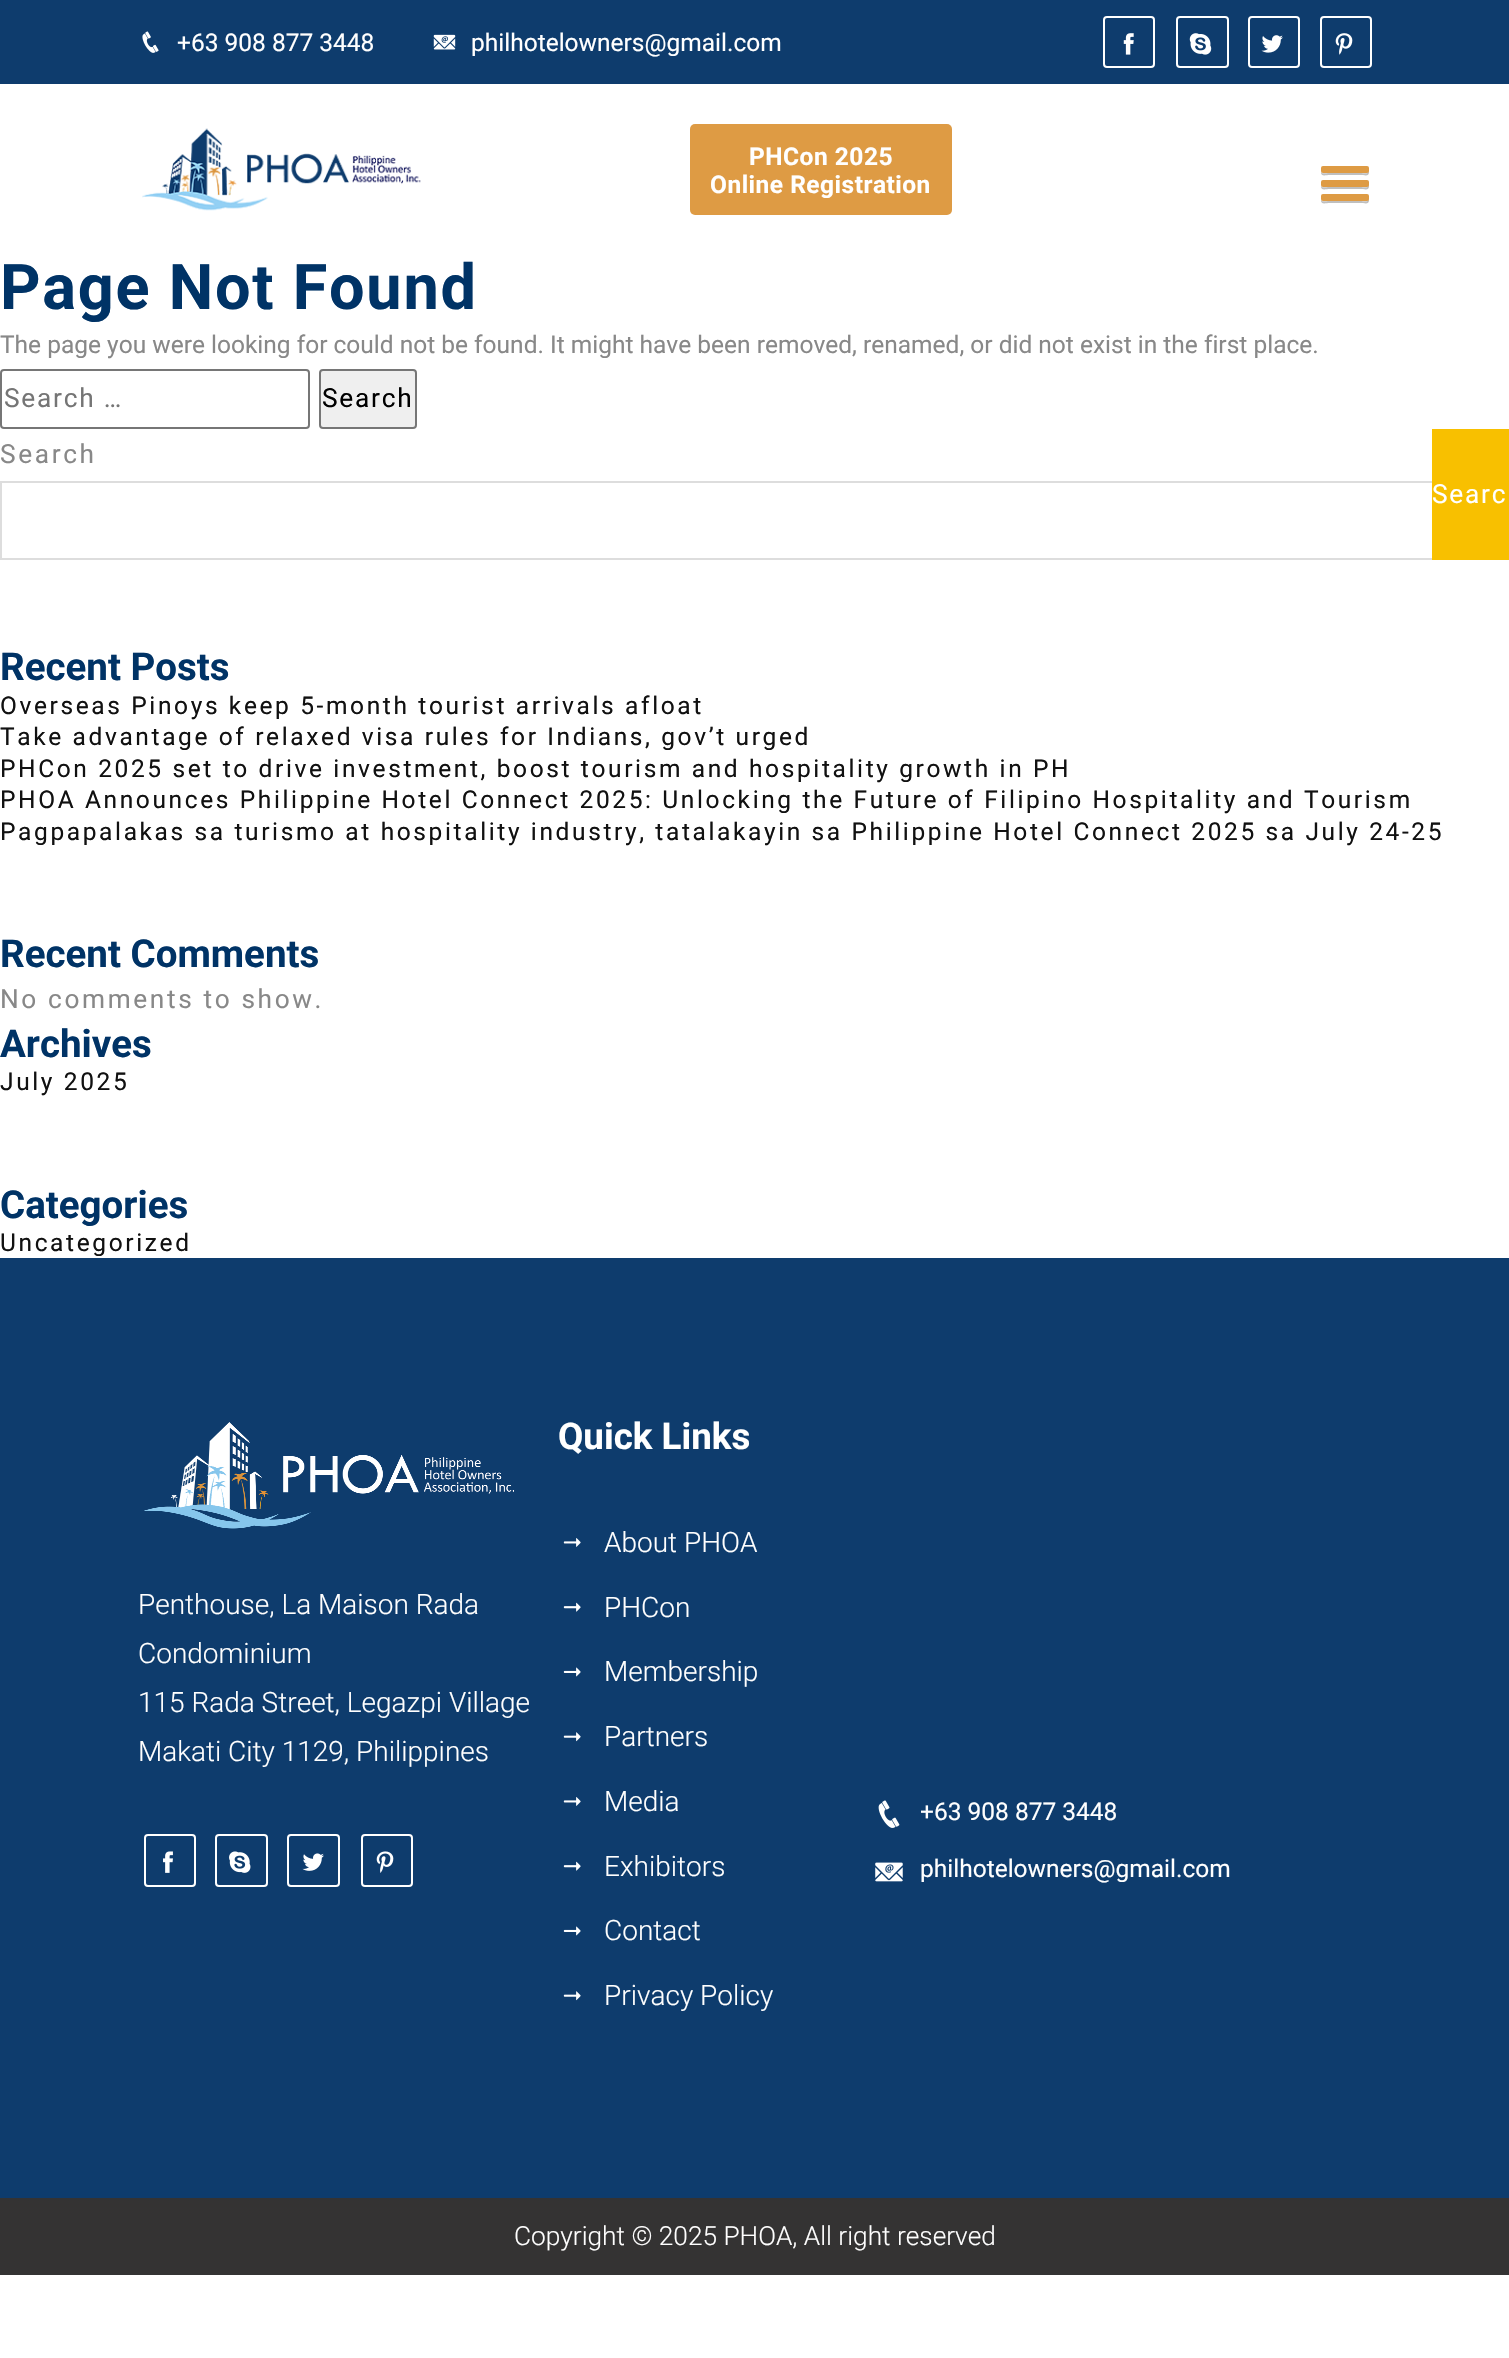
static SkFont makeFont(const char* family, int weight, float size, bool italic = false) {
  SkFontStyle style(weight, SkFontStyle::kNormal_Width,
    italic ? SkFontStyle::kItalic_Slant : SkFontStyle::kUpright_Slant);
  SkFont result(fontMgr->matchFamilyStyle(family, style), size);
  result.setSubpixel(true);
  return result;
}

static void text(SkCanvas* c, const char* s, float x, float y, const SkFont& font, SkColor color) {
  SkPaint ink(SkColor4f::FromColor(color));
  ink.setAntiAlias(true);
  c->drawString(s, x, y, font, ink);
}

static void spacedText(SkCanvas* c, const char* s, float x, float y, const SkFont& font, const SkPaint& ink, float letter, float word) {
  std::vector<SkGlyphID> glyphs(font.countText(s, strlen(s), SkTextEncoding::kUTF8));
  std::vector<float> xs(glyphs.size());
  font.textToGlyphs(s, strlen(s), SkTextEncoding::kUTF8, glyphs);
  font.getXPos(glyphs, xs, x);
  float extra = 0;
  for (size_t i = 0; i < glyphs.size(); i++) {
    xs[i] += extra;
    extra += letter + word * (glyphs[i] == font.unicharToGlyph(' '));
  }
  c->drawTextBlob(SkTextBlob::MakeFromPosHGlyphs(glyphs, xs, y, font), 0, 0, ink);
}

static void box(SkCanvas* c, float l, float t, float r, float b, SkColor color) {
  SkPaint ink(SkColor4f::FromColor(color));
  ink.setAntiAlias(true);
  c->drawRect(SkRect::MakeLTRB(l, t, r, b), ink);
}

static void roundBox(SkCanvas* c, float l, float t, float r, float b, float radius, SkColor color) {
  SkPaint ink(SkColor4f::FromColor(color));
  ink.setAntiAlias(true);
  c->drawRoundRect(SkRect::MakeLTRB(l, t, r, b), radius, radius, ink);
}

static void picture(SkCanvas* c, const char* path, float l, float t, float r, float b) {
  auto image = SkImages::DeferredFromEncodedData(SkData::MakeFromFileName(path));
  c->drawImageRect(image, SkRect::MakeLTRB(l, t, r, b), SkSamplingOptions());
}

void draw(SkCanvas* c) {
  SkPaint paint;
  paint.setAntiAlias(true);
  c->clear(0xffffffff);
  box(c, 0, 0, 1509, 84, 0xff0e3c6d);
  picture(c, "img_01.png", 142, 31, 159, 53);
  SkFont face1 = makeFont("Roboto", 400, 24.5f);
  text(c, "+63 908 877 3448", 177, 51, face1, 0xffffffff);
  picture(c, "img_02.png", 433, 34, 456, 50);
  text(c, "philhotelowners@gmail.com", 471, 51, face1, 0xffffffff);
  paint.setStyle(SkPaint::kStroke_Style);
  paint.setStrokeWidth(2);
  paint.setColor(0xffffffff);
  c->drawRoundRect(SkRect::MakeLTRB(1104, 17, 1154, 67), 3, 3, paint);
  picture(c, "img_03.png", 1123, 33, 1134, 55);
  c->drawRoundRect(SkRect::MakeLTRB(1177, 17, 1228, 67), 3, 3, paint);
  picture(c, "img_04.png", 1189, 33, 1212, 55);
  c->drawRoundRect(SkRect::MakeLTRB(1249, 17, 1299, 67), 3, 3, paint);
  picture(c, "img_05.png", 1261, 35, 1283, 53);
  c->drawRoundRect(SkRect::MakeLTRB(1321, 17, 1371, 67), 3, 3, paint);
  picture(c, "img_06.png", 1335, 33, 1353, 55);
  picture(c, "img_07.png", 142, 128, 421, 211);
  roundBox(c, 690, 124, 952, 215, 5, 0xffde9b44);
  SkFont face2 = makeFont("Roboto", 700, 24.5f);
  paint.setStyle(SkPaint::kFill_Style);
  spacedText(c, "PHCon 2025", 749, 165, face2, paint, 0.5f, 0);
  spacedText(c, "Online Registration", 710, 193, face2, paint, 0.5f, 0);
  paint.setColor(0xffbfbfbf);
  c->drawPath(SkPathBuilder().moveTo(1321, 169).lineTo(1321, 172).cubicTo(1321, 177, 1325, 175, 1330, 175).lineTo(1360, 175).cubicTo(1365, 175, 1369, 177, 1369, 172).lineTo(1368, 169).cubicTo(1368, 175, 1367, 173, 1359, 173).lineTo(1330, 173).cubicTo(1323, 173, 1321, 175, 1321, 169).close().detach(), paint);
  roundBox(c, 1321, 166, 1369, 173, 2, 0xffde9b44);
  c->drawPath(SkPathBuilder().moveTo(1321, 183).lineTo(1321, 186).cubicTo(1321, 191, 1325, 189, 1330, 189).lineTo(1360, 189).cubicTo(1365, 189, 1369, 191, 1369, 186).lineTo(1368, 183).cubicTo(1368, 189, 1367, 187, 1359, 187).lineTo(1330, 187).cubicTo(1323, 187, 1321, 189, 1321, 183).close().detach(), paint);
  roundBox(c, 1321, 180, 1369, 187, 2, 0xffde9b44);
  c->drawPath(SkPathBuilder().moveTo(1321, 197).lineTo(1321, 200).cubicTo(1321, 205, 1325, 203, 1330, 203).lineTo(1360, 203).cubicTo(1365, 203, 1369, 205, 1369, 200).lineTo(1368, 197).cubicTo(1368, 203, 1367, 201, 1359, 201).lineTo(1330, 201).cubicTo(1323, 201, 1321, 203, 1321, 197).close().detach(), paint);
  roundBox(c, 1321, 194, 1369, 201, 2, 0xffde9b44);
  SkFont face3 = makeFont("Roboto", 700, 63);
  paint.setColor(0xff003366);
  spacedText(c, "Page Not Found", 0, 309, face3, paint, 1.75f, 0);
  text(c, "The page you were looking for could not be found. It might have been removed, renamed, or did not exist in the first place.", 0, 353, face1, 0xff888888);
  paint.setStyle(SkPaint::kStroke_Style);
  paint.setColor(0xff767676);
  c->drawRoundRect(SkRect::MakeLTRB(1, 370, 309, 428), 3, 3, paint);
  SkFont face4 = makeFont("Roboto", 400, 26.25f);
  paint.setStyle(SkPaint::kFill_Style);
  paint.setColor(0xff757575);
  spacedText(c, "Search …", 4, 407, face4, paint, 1.75f, 0);
  paint.setColor(0xffefefef);
  c->drawRoundRect(SkRect::MakeLTRB(320, 370, 416, 428), 3, 3, paint);
  paint.setStyle(SkPaint::kStroke_Style);
  paint.setColor(0xff767676);
  c->drawRoundRect(SkRect::MakeLTRB(320, 370, 416, 428), 3, 3, paint);
  paint.setStyle(SkPaint::kFill_Style);
  paint.setColor(0xff000000);
  spacedText(c, "Search", 322, 407, face4, paint, 1.75f, 0);
  paint.setColor(0xff888888);
  spacedText(c, "Search", 0, 463, face4, paint, 2.62f, 0);
  paint.setStyle(SkPaint::kStroke_Style);
  paint.setColor(0xffdddddd);
  c->drawRect(SkRect::MakeLTRB(1, 482, 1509, 559), paint);
  box(c, 1432, 429, 1509, 560, 0xfff8c000);
  paint.setStyle(SkPaint::kFill_Style);
  paint.setColor(0xffffffff);
  spacedText(c, "Searc", 1432, 503, face4, paint, 1.75f, 0);
  SkFont face5 = makeFont("Roboto", 700, 38.5f);
  text(c, "Recent Posts", 0, 680, face5, 0xff003366);
  paint.setColor(0xff111111);
  spacedText(c, "Overseas Pinoys keep 5-month tourist arrivals afloat", 0, 714, face1, paint, 2.62f, 0);
  spacedText(c, "Take advantage of relaxed visa rules for Indians, gov’t urged", 0, 745, face1, paint, 2.62f, 0);
  spacedText(c, "PHCon 2025 set to drive investment, boost tourism and hospitality growth in PH", 0, 777, face1, paint, 2.62f, 0);
  spacedText(c, "PHOA Announces Philippine Hotel Connect 2025: Unlocking the Future of Filipino Hospitality and Tourism", 0, 808, face1, paint, 2.62f, 0);
  spacedText(c, "Pagpapalakas sa turismo at hospitality industry, tatalakayin sa Philippine Hotel Connect 2025 sa July 24-25", 0, 840, face1, paint, 2.62f, 0);
  text(c, "Recent Comments", 0, 967, face5, 0xff003366);
  paint.setColor(0xff888888);
  spacedText(c, "No comments to show.", 0, 1008, face4, paint, 2.62f, 0);
  text(c, "Archives", 0, 1057, face5, 0xff003366);
  paint.setColor(0xff111111);
  spacedText(c, "July 2025", 0, 1090, face1, paint, 2.62f, 0);
  text(c, "Categories", 0, 1218, face5, 0xff003366);
  spacedText(c, "Uncategorized", 0, 1251, face1, paint, 2.62f, 0);
  box(c, 0, 1258, 1509, 2198, 0xff0e3c6d);
  picture(c, "img_08.png", 144, 1422, 514, 1529);
  SkFont face6 = makeFont("Roboto", 300, 28);
  text(c, "Penthouse, La Maison Rada", 138, 1614, face6, 0xffffffff);
  text(c, "Condominium", 138, 1663, face6, 0xffffffff);
  text(c, "115 Rada Street, Legazpi Village", 138, 1712, face6, 0xffffffff);
  text(c, "Makati City 1129, Philippines", 138, 1761, face6, 0xffffffff);
  paint.setStyle(SkPaint::kStroke_Style);
  paint.setColor(0xffffffff);
  c->drawRoundRect(SkRect::MakeLTRB(145, 1835, 195, 1886), 3, 3, paint);
  picture(c, "img_09.png", 163, 1851, 173, 1873);
  c->drawRoundRect(SkRect::MakeLTRB(216, 1835, 267, 1886), 3, 3, paint);
  picture(c, "img_10.png", 229, 1851, 251, 1873);
  c->drawRoundRect(SkRect::MakeLTRB(288, 1835, 339, 1886), 3, 3, paint);
  picture(c, "img_11.png", 302, 1853, 324, 1871);
  c->drawRoundRect(SkRect::MakeLTRB(362, 1835, 412, 1886), 3, 3, paint);
  picture(c, "img_12.png", 376, 1851, 394, 1873);
  SkFont face7 = makeFont("Roboto", 700, 36.75f);
  text(c, "Quick Links", 558, 1449, face7, 0xffffffff);
  picture(c, "img_13.png", 563, 1538, 581, 1547);
  text(c, "About PHOA", 604, 1552, face6, 0xffffffff);
  picture(c, "img_14.png", 563, 1602, 581, 1612);
  text(c, "PHCon", 604, 1617, face6, 0xffffffff);
  picture(c, "img_15.png", 563, 1667, 581, 1677);
  text(c, "Membership", 604, 1681, face6, 0xffffffff);
  picture(c, "img_16.png", 563, 1732, 581, 1742);
  text(c, "Partners", 604, 1746, face6, 0xffffffff);
  picture(c, "img_13.png", 563, 1797, 581, 1806);
  text(c, "Media", 604, 1811, face6, 0xffffffff);
  picture(c, "img_14.png", 563, 1861, 581, 1871);
  text(c, "Exhibitors", 604, 1876, face6, 0xffffffff);
  picture(c, "img_15.png", 563, 1926, 581, 1936);
  text(c, "Contact", 604, 1940, face6, 0xffffffff);
  picture(c, "img_16.png", 563, 1991, 581, 2001);
  text(c, "Privacy Policy", 604, 2005, face6, 0xffffffff);
  picture(c, "img_17.png", 878, 1800, 900, 1828);
  c->save();
  c->clipRect(SkRect::MakeLTRB(921, 1792, 1372, 1832));
  text(c, "+63 908 877 3448", 920, 1820, face1, 0xffffffff);
  c->restore();
  picture(c, "img_18.png", 875, 1862, 903, 1882);
  text(c, "philhotelowners@gmail.com", 920, 1877, face1, 0xffffffff);
  box(c, 0, 2198, 1509, 2275, 0xff343333);
  SkFont face8 = makeFont("Roboto", 300, 26.25f);
  text(c, "Copyright © 2025 PHOA, All right reserved", 514, 2245, face8, 0xffffffff);
}
